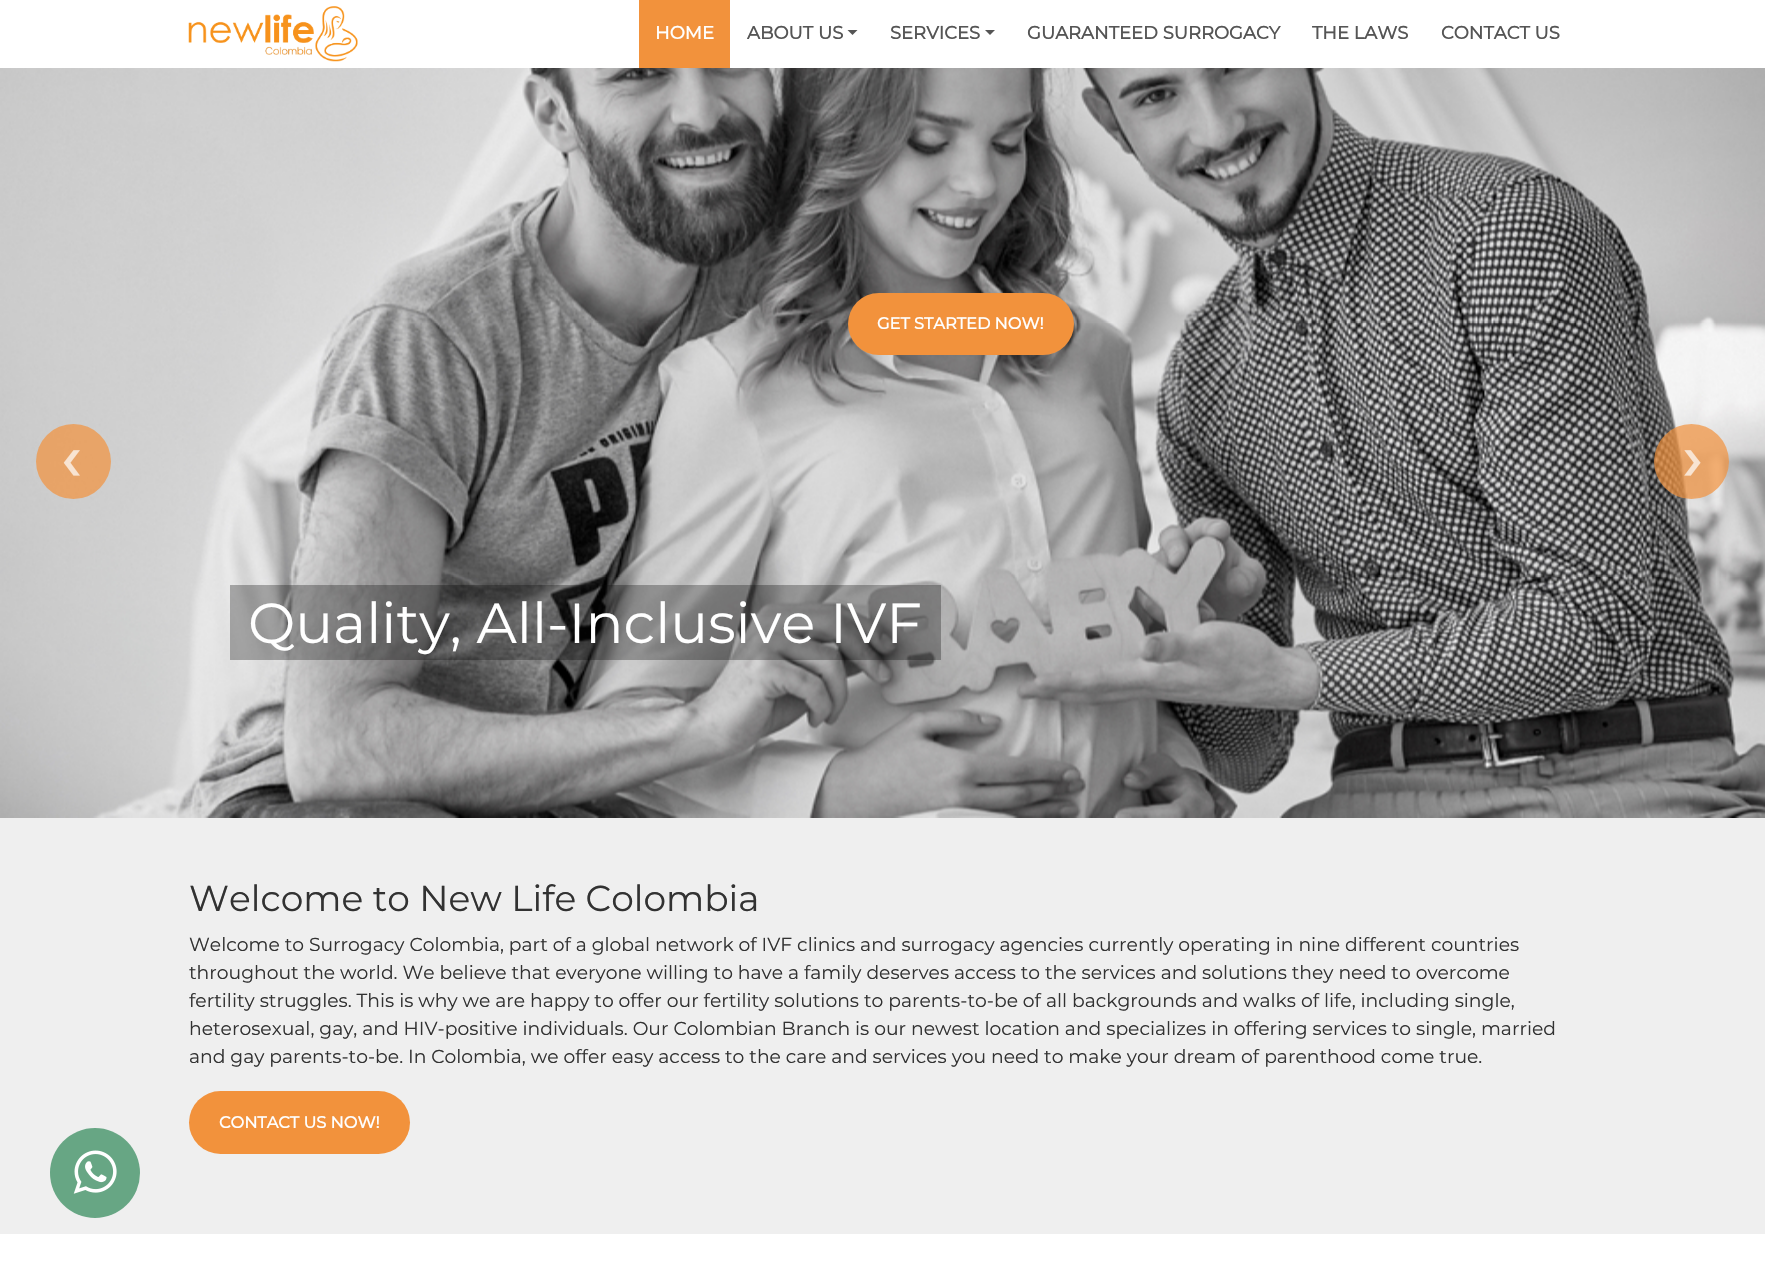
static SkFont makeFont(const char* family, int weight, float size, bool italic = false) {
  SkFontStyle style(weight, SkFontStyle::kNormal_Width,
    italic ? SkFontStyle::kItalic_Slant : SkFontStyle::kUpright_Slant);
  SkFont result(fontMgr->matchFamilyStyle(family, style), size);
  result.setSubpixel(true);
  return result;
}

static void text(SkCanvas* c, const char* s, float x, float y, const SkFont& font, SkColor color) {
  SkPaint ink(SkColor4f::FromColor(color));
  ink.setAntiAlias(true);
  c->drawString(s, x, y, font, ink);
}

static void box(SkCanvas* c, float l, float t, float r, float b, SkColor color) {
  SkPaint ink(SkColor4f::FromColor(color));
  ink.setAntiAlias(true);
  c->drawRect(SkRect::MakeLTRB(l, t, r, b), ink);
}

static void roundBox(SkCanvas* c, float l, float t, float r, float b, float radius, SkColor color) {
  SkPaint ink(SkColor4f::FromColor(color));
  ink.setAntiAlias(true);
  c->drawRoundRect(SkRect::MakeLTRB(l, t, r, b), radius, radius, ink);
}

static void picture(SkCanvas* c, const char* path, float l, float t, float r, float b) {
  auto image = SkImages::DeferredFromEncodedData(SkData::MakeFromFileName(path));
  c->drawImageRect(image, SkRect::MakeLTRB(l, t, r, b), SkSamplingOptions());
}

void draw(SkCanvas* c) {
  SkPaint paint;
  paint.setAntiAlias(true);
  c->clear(0xffffffff);
  picture(c, "img_01.png", 188, 6, 358, 62);
  box(c, 639, 0, 730, 68, 0xfff2923c);
  SkFont face1 = makeFont("Montserrat", 700, 18);
  text(c, "HOME", 655, 39, face1, 0xffffffff);
  text(c, "ABOUT US", 747, 39, face1, 0xff555555);
  paint.setColor(0xff555555);
  c->drawPath(SkPathBuilder().moveTo(847.5f, 30).lineTo(857.5f, 30).lineTo(852.5f, 35).close().detach(), paint);
  text(c, "SERVICES", 890, 39, face1, 0xff555555);
  c->drawPath(SkPathBuilder().moveTo(985, 30).lineTo(995, 30).lineTo(990, 35).close().detach(), paint);
  text(c, "GUARANTEED SURROGACY", 1027, 39, face1, 0xff555555);
  text(c, "THE LAWS", 1312, 39, face1, 0xff555555);
  text(c, "CONTACT US", 1441, 39, face1, 0xff555555);
  picture(c, "img_02.png", 0, 68, 1765, 818);
  roundBox(c, 848, 293, 1074, 355, 31, 0xfff2923c);
  SkFont face2 = makeFont("Montserrat", 700, 16.25f);
  text(c, "GET STARTED NOW!", 877, 329, face2, 0xffffffff);
  paint.setColor(0xb3f2923c);
  c->drawCircle(73.5f, 461.5f, 37.5f, paint);
  SkFont face3 = makeFont("Montserrat", 700, 62);
  text(c, "‹", 61, 480, face3, 0xfff8e4d2);
  c->drawCircle(1691.5f, 461.5f, 37.5f, paint);
  text(c, "›", 1683, 480, face3, 0xfff8e4d2);
  box(c, 230, 585, 941, 660, 0x4d070707);
  SkFont face4 = makeFont("Montserrat", 100, 56.25f);
  text(c, "Quality, All-Inclusive IVF", 248, 643, face4, 0xffffffff);
  box(c, 0, 818, 1765, 1234, 0xffefefef);
  SkFont face5 = makeFont("Montserrat", 100, 36);
  text(c, "Welcome to New Life Colombia", 189, 911, face5, 0xff323232);
  SkFont face6 = makeFont("Montserrat", 100, 18.75f);
  text(c, "Welcome to Surrogacy Colombia, part of a global network of IVF clinics and surrogacy agencies currently operating in nine different countries", 189, 951, face6, 0xff323232);
  text(c, "throughout the world. We believe that everyone willing to have a family deserves access to the services and solutions they need to overcome", 189, 979, face6, 0xff323232);
  text(c, "fertility struggles. This is why we are happy to offer our fertility solutions to parents-to-be of all backgrounds and walks of life, including single,", 189, 1007, face6, 0xff323232);
  text(c, "heterosexual, gay, and HIV-positive individuals. Our Colombian Branch is our newest location and specializes in offering services to single, married", 189, 1035, face6, 0xff323232);
  text(c, "and gay parents-to-be. In Colombia, we offer easy access to the care and services you need to make your dream of parenthood come true.", 189, 1063, face6, 0xff323232);
  roundBox(c, 189, 1091, 410, 1154, 31.5f, 0xfff2923c);
  text(c, "CONTACT US NOW!", 219, 1128, face2, 0xffffffff);
  paint.setColor(0xff67a684);
  c->drawCircle(95, 1173, 45, paint);
  picture(c, "img_03.png", 73, 1150, 117, 1194);
}
